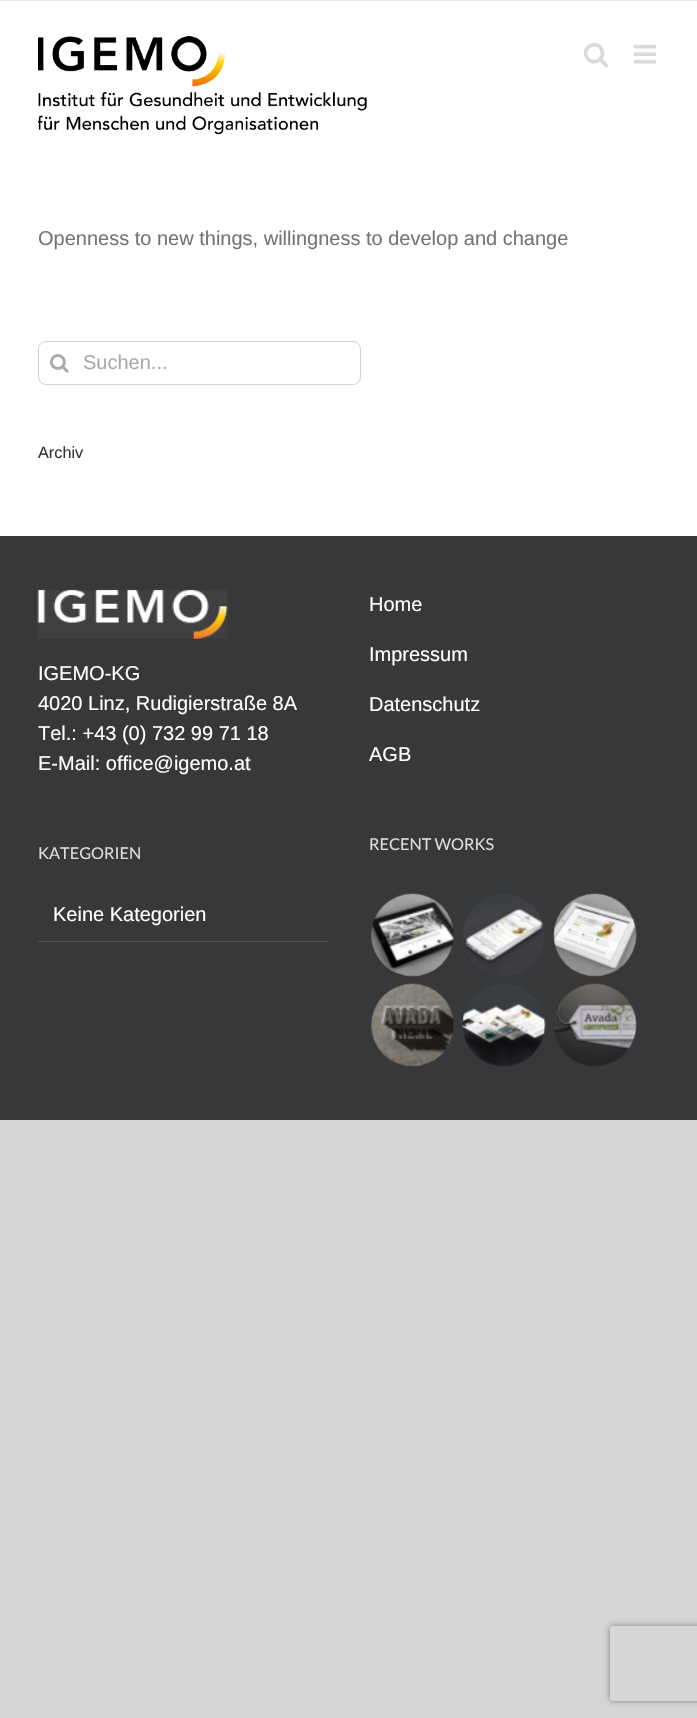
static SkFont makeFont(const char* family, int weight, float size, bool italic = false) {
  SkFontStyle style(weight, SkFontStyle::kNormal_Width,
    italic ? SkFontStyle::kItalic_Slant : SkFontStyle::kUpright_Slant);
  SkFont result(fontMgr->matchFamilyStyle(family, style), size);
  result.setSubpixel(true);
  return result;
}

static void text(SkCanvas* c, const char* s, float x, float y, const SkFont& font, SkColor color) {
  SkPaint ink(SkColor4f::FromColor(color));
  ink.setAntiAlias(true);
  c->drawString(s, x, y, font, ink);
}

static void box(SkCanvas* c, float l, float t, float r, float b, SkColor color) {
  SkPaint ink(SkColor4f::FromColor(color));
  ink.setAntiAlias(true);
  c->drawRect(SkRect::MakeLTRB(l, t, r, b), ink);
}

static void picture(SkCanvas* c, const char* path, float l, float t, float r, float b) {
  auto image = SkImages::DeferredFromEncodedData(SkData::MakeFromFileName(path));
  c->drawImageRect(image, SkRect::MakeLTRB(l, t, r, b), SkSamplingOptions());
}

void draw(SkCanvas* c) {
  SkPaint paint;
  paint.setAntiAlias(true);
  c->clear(0xffd7d6d6);
  box(c, 0, 1, 697, 536, 0xffffffff);
  box(c, 0, 0, 697, 1, 0xffe5e5e5);
  picture(c, "img_01.png", 38, 36, 367, 135);
  picture(c, "img_02.png", 583, 43, 608, 68);
  picture(c, "img_03.png", 633, 44, 657, 64);
  SkFont face1 = makeFont("Liberation Sans", 400, 20);
  text(c, "Openness to new things, willingness to develop and change", 38, 245, face1, 0xff747474);
  paint.setStyle(SkPaint::kStroke_Style);
  paint.setStrokeWidth(1);
  paint.setColor(0xffd2d2d2);
  c->drawRoundRect(SkRect::MakeLTRB(38.5f, 341.5f, 360.5f, 384.5f), 7.5f, 7.5f, paint);
  picture(c, "img_04.png", 50, 354, 69, 373);
  text(c, "Suchen...", 83, 369, face1, 0xffaaa9a9);
  SkFont face2 = makeFont("Liberation Sans", 400, 16.25f);
  text(c, "Archiv", 38, 458, face2, 0xff333333);
  box(c, 0, 536, 697, 1120, 0xff363839);
  picture(c, "img_05.png", 37, 589, 228, 639);
  text(c, "IGEMO-KG", 38, 680, face1, 0xffffffff);
  text(c, "4020 Linz, Rudigierstraße 8A", 38, 710, face1, 0xffffffff);
  text(c, "Tel.: +43 (0) 732 99 71 18", 38, 740, face1, 0xffffffff);
  text(c, "E-Mail: office@igemo.at", 38, 770, face1, 0xffffffff);
  SkFont face3 = makeFont("Lato", 400, 16.25f);
  text(c, "KATEGORIEN", 38, 859, face3, 0xffdddddd);
  box(c, 38, 941, 329, 942, 0xff505152);
  text(c, "Keine Kategorien", 53, 921, face1, 0xffffffff);
  text(c, "Home", 369, 611, face1, 0xffffffff);
  text(c, "Impressum", 369, 661, face1, 0xffffffff);
  text(c, "Datenschutz", 369, 711, face1, 0xffffffff);
  text(c, "AGB", 369, 761, face1, 0xffffffff);
  text(c, "RECENT WORKS", 369, 850, face3, 0xffdddddd);
  picture(c, "img_06.png", 371, 893, 454, 977);
  picture(c, "img_07.png", 462, 894, 545, 976);
  picture(c, "img_08.png", 553, 893, 637, 977);
  picture(c, "img_09.png", 371, 983, 454, 1067);
  picture(c, "img_10.png", 462, 984, 546, 1067);
  picture(c, "img_11.png", 554, 983, 637, 1067);
  c->save();
  c->clipPath(SkPathBuilder(SkPathFillType::kEvenOdd).moveTo(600, 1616).lineTo(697, 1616).lineTo(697, 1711).lineTo(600, 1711).close().moveTo(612.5f, 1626).lineTo(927.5f, 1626).cubicTo(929, 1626, 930, 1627, 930, 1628.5f).lineTo(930, 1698.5f).cubicTo(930, 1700, 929, 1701, 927.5f, 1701).lineTo(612.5f, 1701).cubicTo(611, 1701, 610, 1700, 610, 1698.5f).lineTo(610, 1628.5f).cubicTo(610, 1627, 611, 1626, 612.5f, 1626).close().detach(), true);
  paint.setStyle(SkPaint::kFill_Style);
  paint.setColor(0xff808080);
  paint.setMaskFilter(SkMaskFilter::MakeBlur(kNormal_SkBlurStyle, 3));
  c->drawRoundRect(SkRect::MakeLTRB(610, 1626, 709, 1701), 2.5f, 2.5f, paint);
  paint.setMaskFilter(nullptr);
  c->restore();
}
